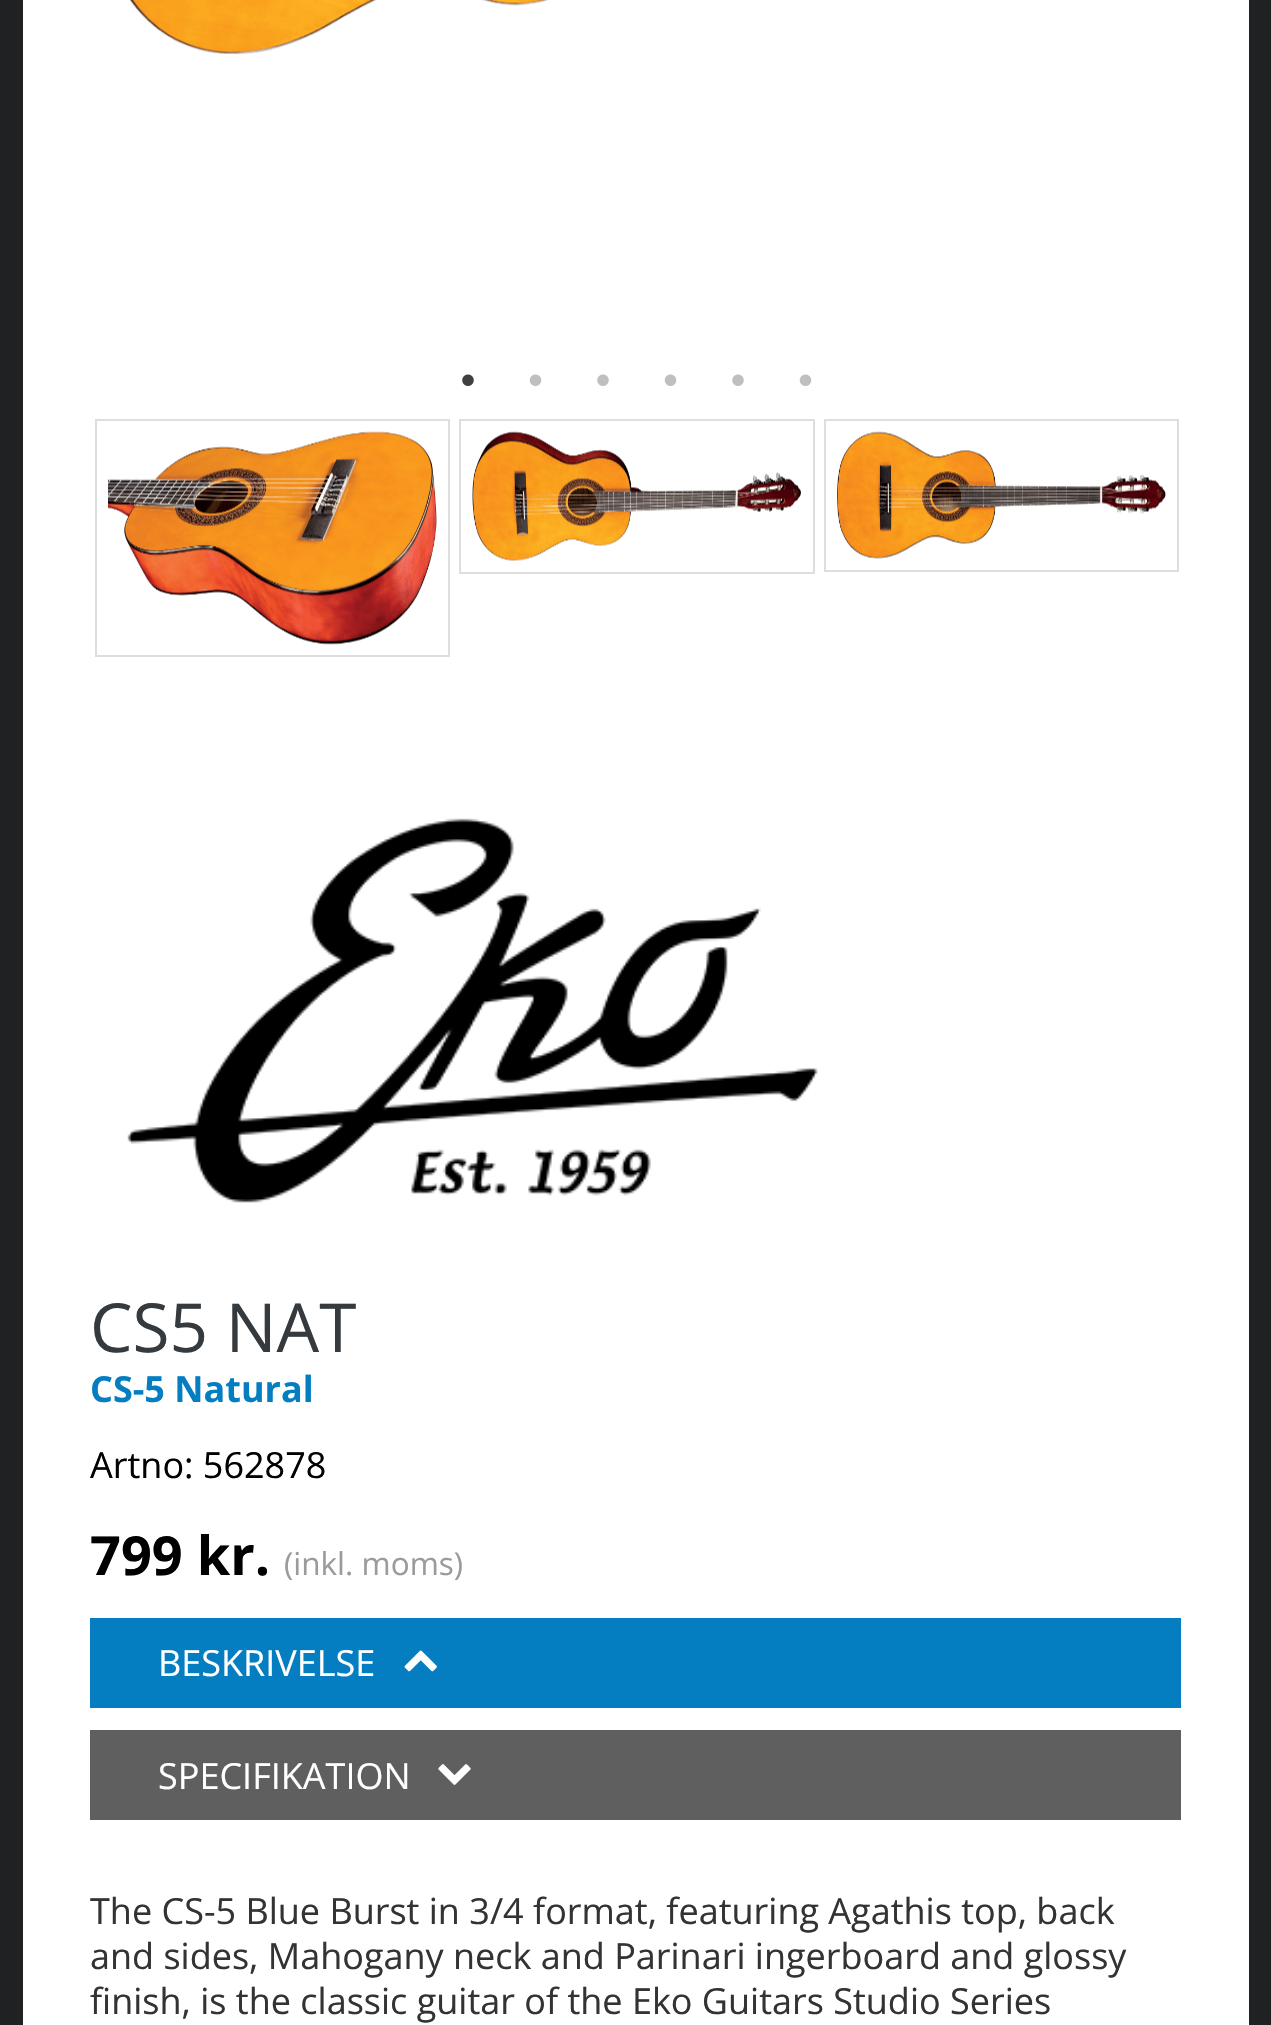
static SkFont makeFont(const char* family, int weight, float size, bool italic = false) {
  SkFontStyle style(weight, SkFontStyle::kNormal_Width,
    italic ? SkFontStyle::kItalic_Slant : SkFontStyle::kUpright_Slant);
  SkFont result(fontMgr->matchFamilyStyle(family, style), size);
  result.setSubpixel(true);
  return result;
}

static void text(SkCanvas* c, const char* s, float x, float y, const SkFont& font, SkColor color) {
  SkPaint ink(SkColor4f::FromColor(color));
  ink.setAntiAlias(true);
  c->drawString(s, x, y, font, ink);
}

static void box(SkCanvas* c, float l, float t, float r, float b, SkColor color) {
  SkPaint ink(SkColor4f::FromColor(color));
  ink.setAntiAlias(true);
  c->drawRect(SkRect::MakeLTRB(l, t, r, b), ink);
}

static void picture(SkCanvas* c, const char* path, float l, float t, float r, float b) {
  auto image = SkImages::DeferredFromEncodedData(SkData::MakeFromFileName(path));
  c->drawImageRect(image, SkRect::MakeLTRB(l, t, r, b), SkSamplingOptions());
}

void draw(SkCanvas* c) {
  SkPaint paint;
  paint.setAntiAlias(true);
  c->clear(0xff202123);
  box(c, 23, 0, 1249, 2025, 0xffffffff);
  picture(c, "img_01.png", 129, 0, 549, 54);
  picture(c, "img_02.png", 462, 374, 474, 386);
  picture(c, "img_03.png", 529, 374, 542, 386);
  picture(c, "img_04.png", 597, 374, 609, 386);
  picture(c, "img_03.png", 664, 374, 677, 386);
  picture(c, "img_04.png", 732, 374, 744, 386);
  picture(c, "img_03.png", 799, 374, 812, 386);
  paint.setStyle(SkPaint::kStroke_Style);
  paint.setStrokeWidth(2);
  paint.setColor(0xffdedede);
  c->drawRect(SkRect::MakeLTRB(96, 420, 449, 656), paint);
  picture(c, "img_05.png", 108, 431, 437, 645);
  c->drawRect(SkRect::MakeLTRB(460, 420, 814, 573), paint);
  picture(c, "img_06.png", 472, 431, 801, 561);
  c->drawRect(SkRect::MakeLTRB(825, 420, 1178, 571), paint);
  picture(c, "img_07.png", 837, 431, 1166, 559);
  picture(c, "img_08.png", 127, 818, 818, 1203);
  SkFont face1 = makeFont("Open Sans", 400, 67.5f);
  text(c, "CS5 NAT", 90, 1352, face1, 0xff353a3e);
  SkFont face2 = makeFont("Open Sans", 700, 36);
  text(c, "CS-5 Natural", 90, 1402, face2, 0xff047ec1);
  SkFont face3 = makeFont("Open Sans", 400, 36);
  text(c, "Artno: 562878", 90, 1478, face3, 0xff000000);
  SkFont face4 = makeFont("Open Sans", 700, 54);
  text(c, "799 kr.", 90, 1575, face4, 0xff000000);
  SkFont face5 = makeFont("Open Sans", 400, 31.5f);
  text(c, "(inkl. moms)", 284, 1575, face5, 0xff9b9b9b);
  box(c, 90, 1618, 1181, 1708, 0xff047ec1);
  text(c, "BESKRIVELSE", 158, 1676, face3, 0xffffffff);
  picture(c, "img_09.png", 404, 1650, 437, 1672);
  box(c, 90, 1730, 1181, 1820, 0xff5f5f5f);
  text(c, "SPECIFIKATION", 158, 1789, face3, 0xffffffff);
  picture(c, "img_10.png", 438, 1764, 471, 1785);
  text(c, "The CS-5 Blue Burst in 3/4 format, featuring Agathis top, back", 90, 1924, face3, 0xff333333);
  text(c, "and sides, Mahogany neck and Parinari ingerboard and glossy", 90, 1969, face3, 0xff333333);
  text(c, "finish, is the classic guitar of the Eko Guitars Studio Series", 90, 2014, face3, 0xff333333);
}
